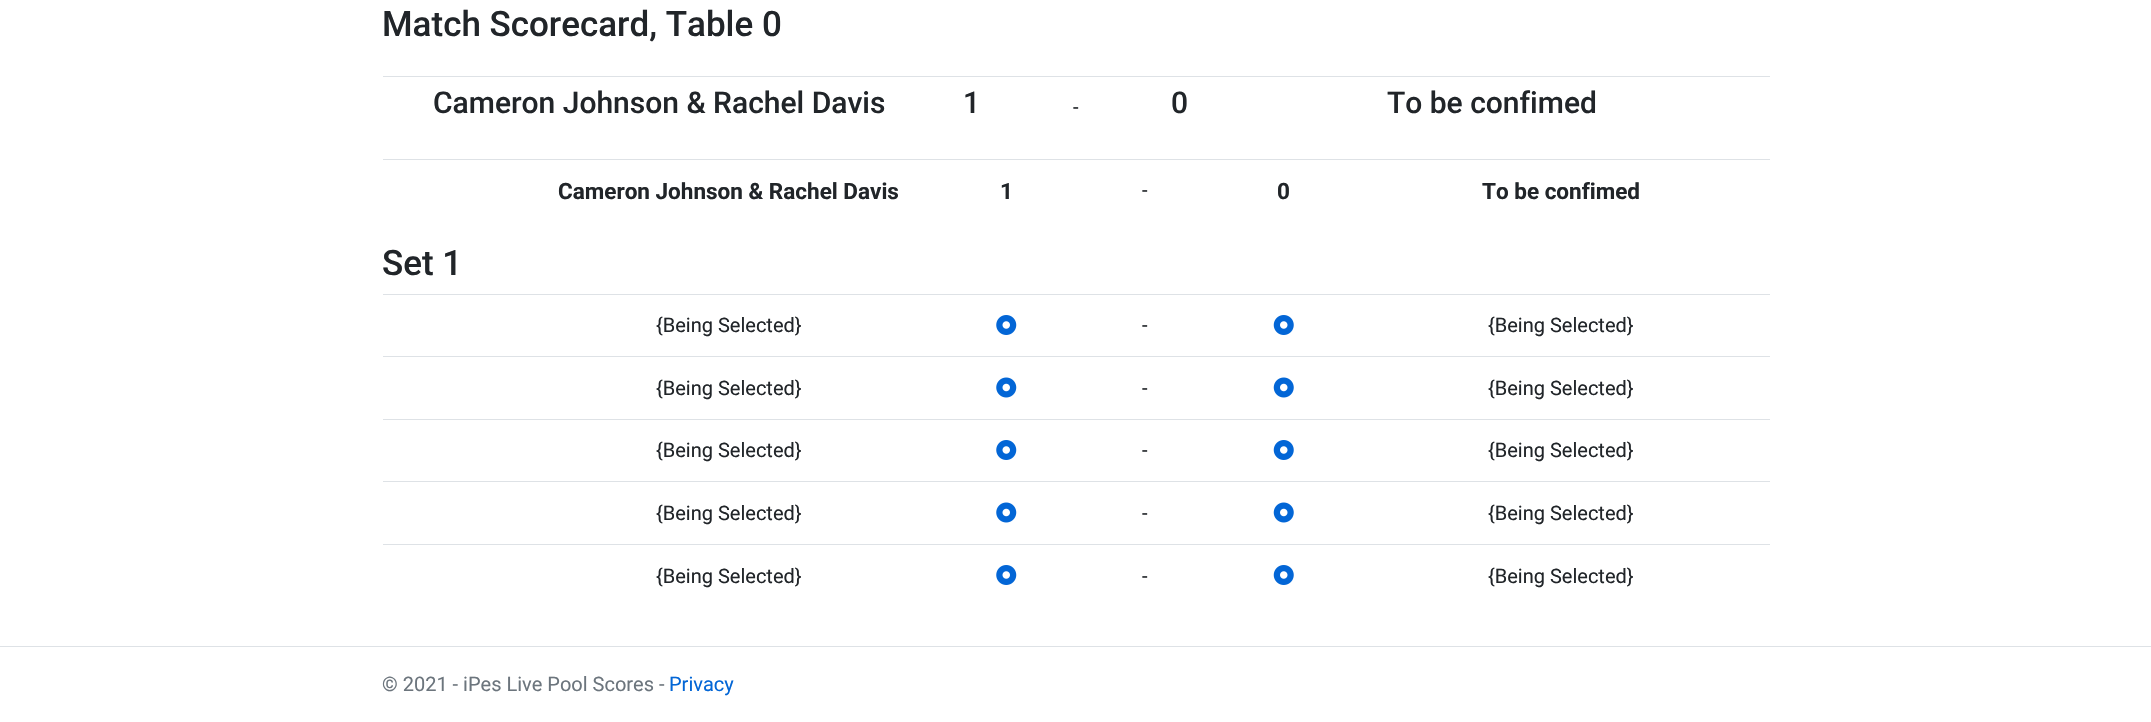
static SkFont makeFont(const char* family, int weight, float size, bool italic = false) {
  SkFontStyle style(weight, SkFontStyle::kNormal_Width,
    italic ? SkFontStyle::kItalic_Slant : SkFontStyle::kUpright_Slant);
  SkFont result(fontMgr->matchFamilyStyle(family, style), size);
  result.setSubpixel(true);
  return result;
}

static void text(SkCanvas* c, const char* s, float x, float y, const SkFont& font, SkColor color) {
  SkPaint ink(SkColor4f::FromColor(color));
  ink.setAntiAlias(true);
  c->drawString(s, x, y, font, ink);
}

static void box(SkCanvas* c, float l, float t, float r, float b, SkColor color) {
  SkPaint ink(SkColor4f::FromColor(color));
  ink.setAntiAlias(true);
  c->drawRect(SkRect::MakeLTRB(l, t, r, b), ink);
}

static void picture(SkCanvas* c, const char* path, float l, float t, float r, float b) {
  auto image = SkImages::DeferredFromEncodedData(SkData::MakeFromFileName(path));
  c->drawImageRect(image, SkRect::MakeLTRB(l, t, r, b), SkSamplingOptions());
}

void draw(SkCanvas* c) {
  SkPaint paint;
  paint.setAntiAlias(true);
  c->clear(0xffffffff);
  SkFont face1 = makeFont("Roboto", 500, 35);
  text(c, "Match Scorecard, Table 0", 382, 36, face1, 0xff212529);
  SkFont face2 = makeFont("Roboto", 500, 30);
  text(c, "Cameron Johnson & Rachel Davis", 433, 113, face2, 0xff212529);
  text(c, "1", 963, 113, face2, 0xff212529);
  SkFont face3 = makeFont("Roboto", 400, 20);
  text(c, "-", 1073, 114, face3, 0xff212529);
  text(c, "0", 1171, 113, face2, 0xff212529);
  box(c, 383, 76, 1770, 77, 0xffdee2e6);
  text(c, "To be confimed", 1387, 113, face2, 0xff212529);
  SkFont face4 = makeFont("Roboto", 700, 22.5f);
  text(c, "Cameron Johnson & Rachel Davis", 558, 199, face4, 0xff212529);
  text(c, "1", 1000, 199, face4, 0xff212529);
  text(c, "-", 1142, 197, face3, 0xff212529);
  text(c, "0", 1277, 199, face4, 0xff212529);
  box(c, 383, 159, 1770, 160, 0xffdee2e6);
  text(c, "To be confimed", 1482, 199, face4, 0xff212529);
  text(c, "Set 1", 382, 275, face1, 0xff212529);
  text(c, "{Being Selected}", 656, 332, face3, 0xff212529);
  picture(c, "img_01.png", 996, 315, 1017, 335);
  text(c, "-", 1142, 332, face3, 0xff212529);
  picture(c, "img_02.png", 1273, 315, 1294, 335);
  box(c, 383, 294, 1770, 295, 0xffdee2e6);
  text(c, "{Being Selected}", 1488, 332, face3, 0xff212529);
  text(c, "{Being Selected}", 656, 395, face3, 0xff212529);
  picture(c, "img_03.png", 996, 377, 1017, 398);
  text(c, "-", 1142, 395, face3, 0xff212529);
  picture(c, "img_04.png", 1273, 377, 1294, 398);
  box(c, 383, 356, 1770, 357, 0xffdee2e6);
  text(c, "{Being Selected}", 1488, 395, face3, 0xff212529);
  text(c, "{Being Selected}", 656, 457, face3, 0xff212529);
  picture(c, "img_01.png", 996, 440, 1017, 460);
  text(c, "-", 1142, 457, face3, 0xff212529);
  picture(c, "img_02.png", 1273, 440, 1294, 460);
  box(c, 383, 419, 1770, 420, 0xffdee2e6);
  text(c, "{Being Selected}", 1488, 457, face3, 0xff212529);
  text(c, "{Being Selected}", 656, 520, face3, 0xff212529);
  picture(c, "img_03.png", 996, 502, 1017, 523);
  text(c, "-", 1142, 520, face3, 0xff212529);
  picture(c, "img_04.png", 1273, 502, 1294, 523);
  box(c, 383, 481, 1770, 482, 0xffdee2e6);
  text(c, "{Being Selected}", 1488, 520, face3, 0xff212529);
  text(c, "{Being Selected}", 656, 583, face3, 0xff212529);
  picture(c, "img_01.png", 996, 565, 1017, 585);
  text(c, "-", 1142, 583, face3, 0xff212529);
  picture(c, "img_02.png", 1273, 565, 1294, 585);
  box(c, 383, 544, 1770, 545, 0xffdee2e6);
  text(c, "{Being Selected}", 1488, 583, face3, 0xff212529);
  box(c, 0, 646, 2151, 647, 0xffdee2e6);
  text(c, "© 2021 - iPes Live Pool Scores -", 382, 691, face3, 0xff6c757d);
  text(c, "Privacy", 669, 691, face3, 0xff0366d6);
}
